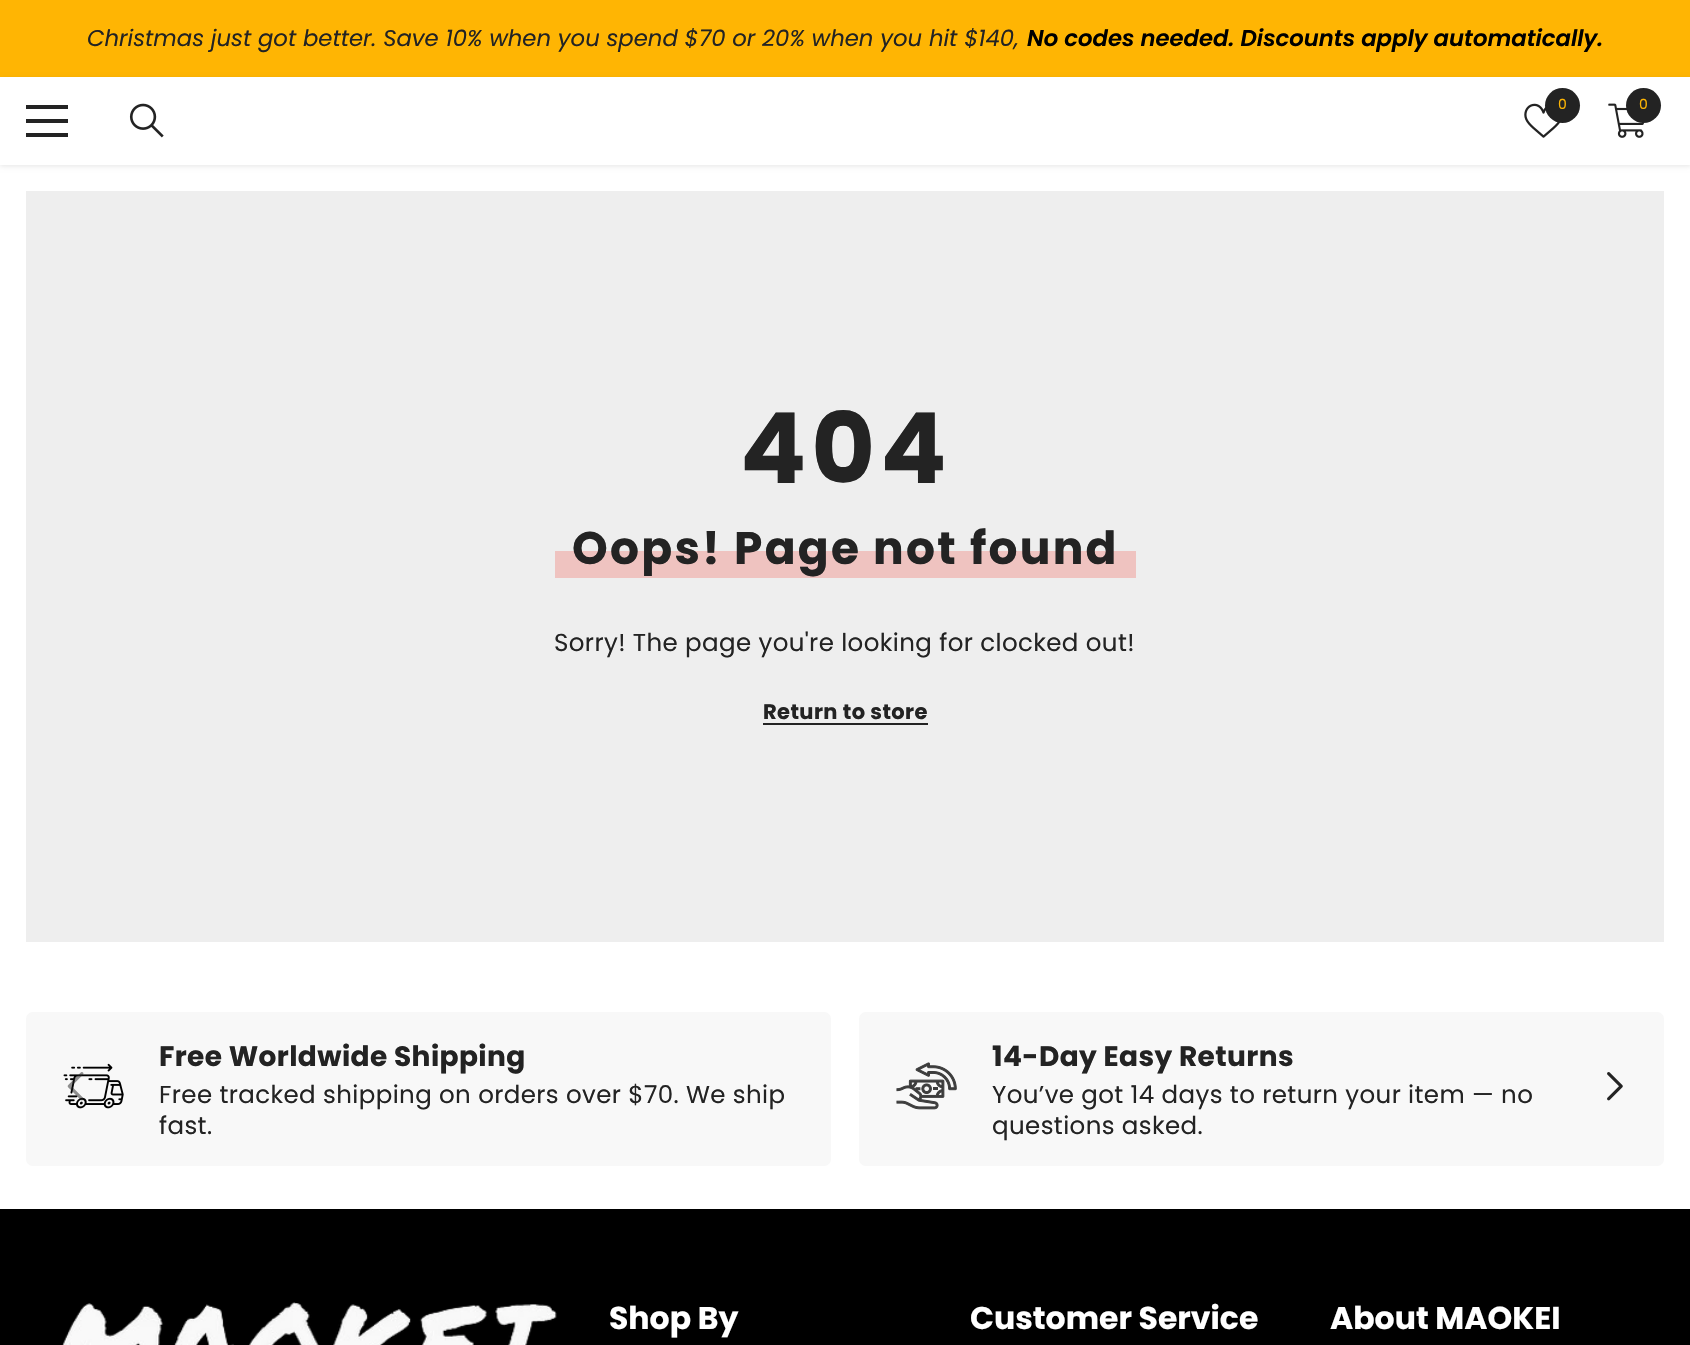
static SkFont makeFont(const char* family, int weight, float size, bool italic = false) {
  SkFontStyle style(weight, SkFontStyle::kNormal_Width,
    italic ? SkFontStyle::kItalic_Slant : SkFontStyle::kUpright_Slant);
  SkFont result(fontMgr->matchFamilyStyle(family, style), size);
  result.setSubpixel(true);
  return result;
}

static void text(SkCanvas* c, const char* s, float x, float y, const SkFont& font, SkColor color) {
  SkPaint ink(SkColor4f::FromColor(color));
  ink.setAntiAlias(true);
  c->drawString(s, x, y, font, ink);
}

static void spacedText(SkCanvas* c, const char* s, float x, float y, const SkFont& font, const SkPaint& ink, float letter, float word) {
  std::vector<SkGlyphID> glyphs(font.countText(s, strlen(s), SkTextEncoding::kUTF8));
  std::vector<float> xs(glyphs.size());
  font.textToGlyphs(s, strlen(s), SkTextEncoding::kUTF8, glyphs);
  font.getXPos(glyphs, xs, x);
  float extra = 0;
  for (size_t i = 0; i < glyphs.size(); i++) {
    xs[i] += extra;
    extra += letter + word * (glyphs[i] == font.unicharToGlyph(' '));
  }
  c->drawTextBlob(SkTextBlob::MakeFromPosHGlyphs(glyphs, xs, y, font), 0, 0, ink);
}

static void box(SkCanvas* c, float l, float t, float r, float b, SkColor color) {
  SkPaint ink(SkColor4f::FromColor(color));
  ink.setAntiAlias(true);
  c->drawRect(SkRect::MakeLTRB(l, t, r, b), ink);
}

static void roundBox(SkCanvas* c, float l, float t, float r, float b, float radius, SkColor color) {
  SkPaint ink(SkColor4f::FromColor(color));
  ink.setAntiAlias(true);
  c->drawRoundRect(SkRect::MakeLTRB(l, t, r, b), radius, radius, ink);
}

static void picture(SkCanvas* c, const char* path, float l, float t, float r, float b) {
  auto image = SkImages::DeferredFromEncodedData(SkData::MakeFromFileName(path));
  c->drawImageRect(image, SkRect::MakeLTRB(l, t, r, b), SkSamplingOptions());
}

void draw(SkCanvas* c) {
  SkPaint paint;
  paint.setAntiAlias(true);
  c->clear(0xffffffff);
  box(c, 0, 0, 1690, 77, 0xffffb503);
  SkFont face1 = makeFont("Poppins", 400, 22.75f, true);
  text(c, "Christmas just got better. Save 10% when you spend $70 or 20% when you hit $140,", 87, 46, face1, 0xff232323);
  SkFont face2 = makeFont("Poppins", 600, 22.75f, true);
  text(c, "No codes needed. Discounts apply automatically.", 1027, 46, face2, 0xff000000);
  paint.setColor(0x1a000000);
  paint.setMaskFilter(SkMaskFilter::MakeBlur(kNormal_SkBlurStyle, 2.5f));
  c->drawRect(SkRect::MakeLTRB(0, 79, 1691, 166), paint);
  paint.setMaskFilter(nullptr);
  box(c, 0, 77, 1690, 165, 0xffffffff);
  box(c, 26, 119, 68, 123, 0xff232323);
  box(c, 26, 105, 68, 109, 0xff232323);
  box(c, 26, 133, 68, 137, 0xff232323);
  picture(c, "img_01.png", 129, 103, 164, 138);
  picture(c, "img_02.png", 1524, 103, 1561, 138);
  paint.setColor(0xff232323);
  c->drawCircle(1562.5f, 105.5f, 17.5f, paint);
  SkFont face3 = makeFont("Poppins", 400, 14);
  text(c, "0", 1558, 109, face3, 0xffffb503);
  picture(c, "img_03.png", 1608, 103, 1645, 138);
  c->drawCircle(1643.5f, 105.5f, 17.5f, paint);
  text(c, "0", 1639, 109, face3, 0xffffb503);
  box(c, 26, 191, 1664, 942, 0xffeeeeee);
  SkFont face4 = makeFont("Poppins", 700, 98);
  spacedText(c, "404", 740, 483, face4, paint, 5, 0);
  box(c, 555, 551, 1136, 578, 0xffefc3c0);
  SkFont face5 = makeFont("Poppins", 700, 45.5f);
  spacedText(c, "Oops! Page not found", 572, 564, face5, paint, 2.25f, 0);
  SkFont face6 = makeFont("Poppins", 400, 24.5f);
  spacedText(c, "Sorry! The page you're looking for clocked out!", 554, 651, face6, paint, 0.4f, 0);
  SkFont face7 = makeFont("Poppins", 700, 21);
  spacedText(c, "Return to store", 763, 719, face7, paint, 0.4f, 0);
  box(c, 763, 723, 928, 725, 0xff232323);
  roundBox(c, 26, 1012, 831, 1166, 7, 0xfff8f8f8);
  picture(c, "img_04.png", 63, 1063, 124, 1109);
  SkFont face8 = makeFont("Poppins", 700, 28);
  spacedText(c, "Free Worldwide Shipping", 159, 1066, face8, paint, 0.4f, 0);
  spacedText(c, "Free tracked shipping on orders over $70. We ship", 159, 1103, face6, paint, 0.4f, 0);
  spacedText(c, "fast.", 159, 1134, face6, paint, 0.4f, 0);
  roundBox(c, 859, 1012, 1664, 1166, 7, 0xfff8f8f8);
  picture(c, "img_05.png", 896, 1062, 957, 1110);
  spacedText(c, "14-Day Easy Returns", 992, 1066, face8, paint, 0.4f, 0);
  spacedText(c, "You’ve got 14 days to return your item — no", 992, 1103, face6, paint, 0.4f, 0);
  spacedText(c, "questions asked.", 992, 1134, face6, paint, 0.4f, 0);
  picture(c, "img_06.png", 67, 1072, 84, 1101);
  picture(c, "img_07.png", 1607, 1072, 1623, 1101);
  box(c, 0, 1209, 1690, 1345, 0xff000000);
  picture(c, "img_08.png", 62, 1302, 557, 1345);
  SkFont face9 = makeFont("Poppins", 700, 31.5f);
  text(c, "Shop By", 609, 1329, face9, 0xffffffff);
  text(c, "Customer Service", 970, 1329, face9, 0xffffffff);
  text(c, "About MAOKEI", 1330, 1329, face9, 0xffffffff);
}
